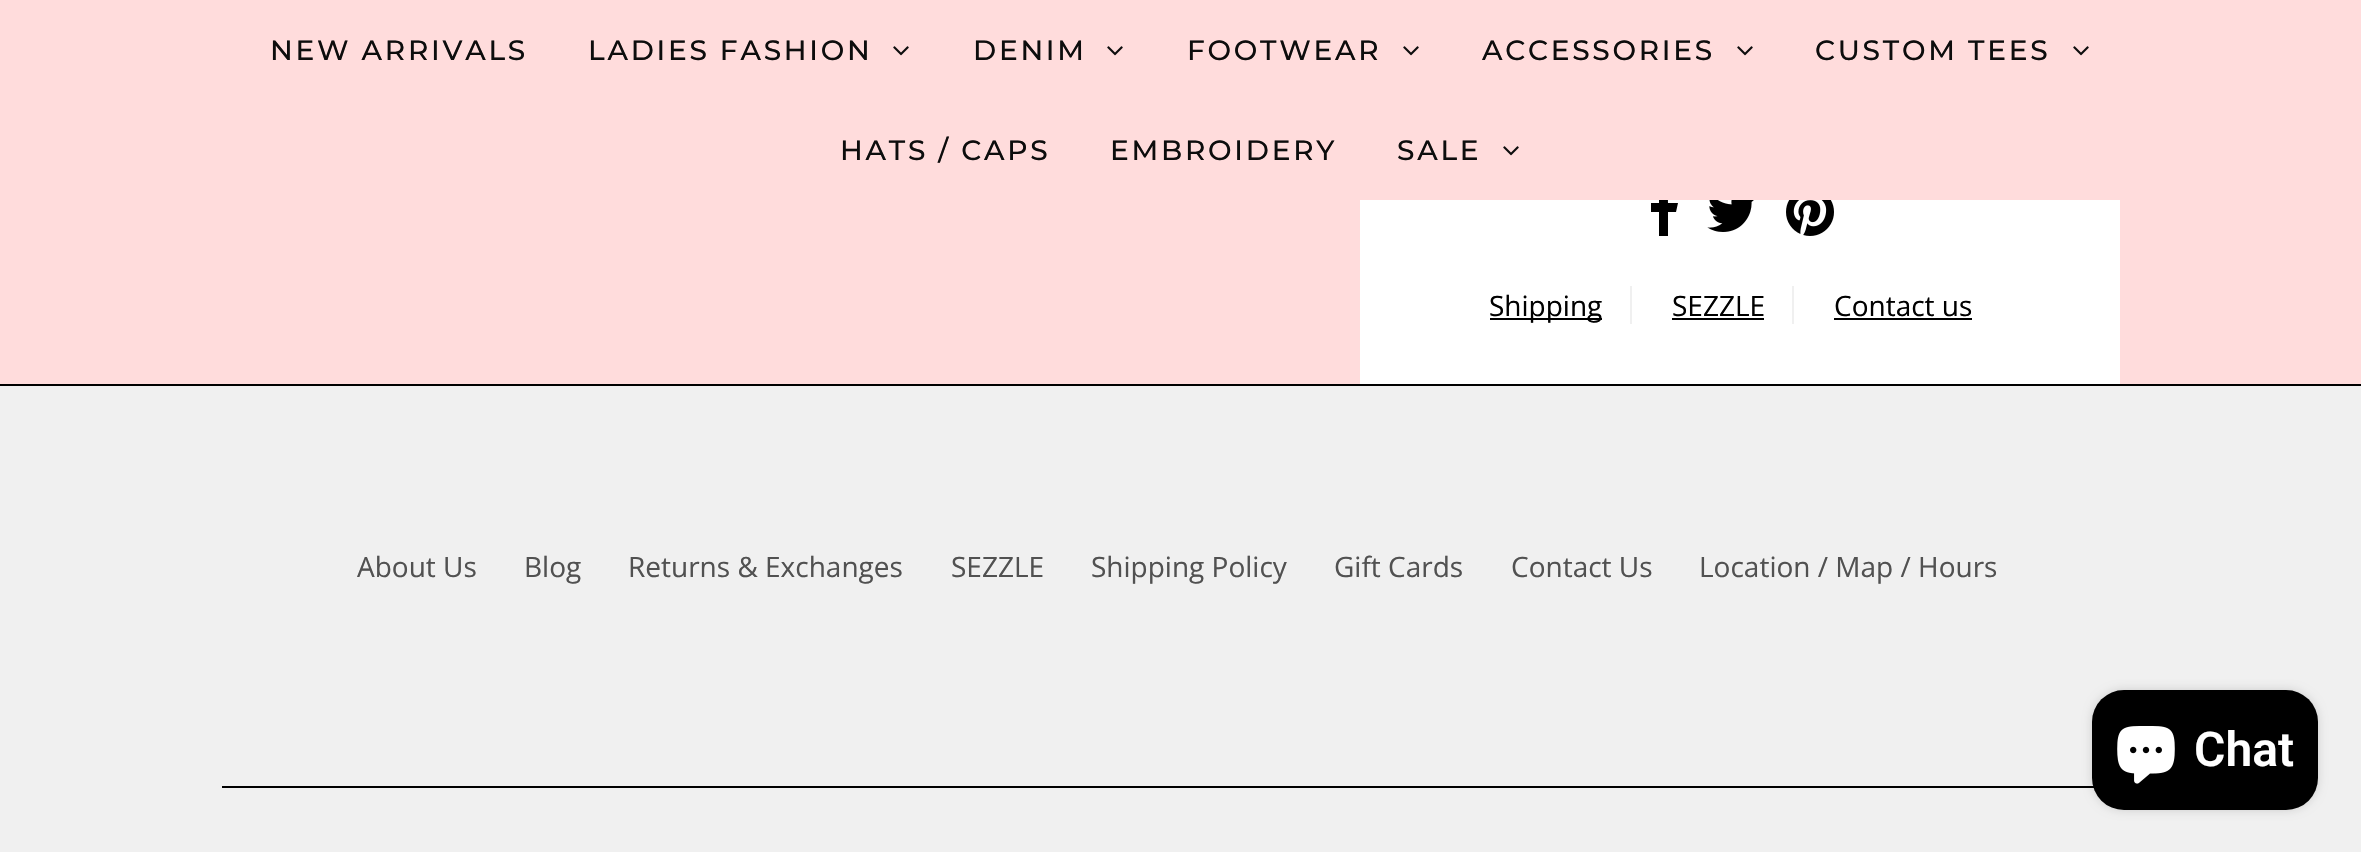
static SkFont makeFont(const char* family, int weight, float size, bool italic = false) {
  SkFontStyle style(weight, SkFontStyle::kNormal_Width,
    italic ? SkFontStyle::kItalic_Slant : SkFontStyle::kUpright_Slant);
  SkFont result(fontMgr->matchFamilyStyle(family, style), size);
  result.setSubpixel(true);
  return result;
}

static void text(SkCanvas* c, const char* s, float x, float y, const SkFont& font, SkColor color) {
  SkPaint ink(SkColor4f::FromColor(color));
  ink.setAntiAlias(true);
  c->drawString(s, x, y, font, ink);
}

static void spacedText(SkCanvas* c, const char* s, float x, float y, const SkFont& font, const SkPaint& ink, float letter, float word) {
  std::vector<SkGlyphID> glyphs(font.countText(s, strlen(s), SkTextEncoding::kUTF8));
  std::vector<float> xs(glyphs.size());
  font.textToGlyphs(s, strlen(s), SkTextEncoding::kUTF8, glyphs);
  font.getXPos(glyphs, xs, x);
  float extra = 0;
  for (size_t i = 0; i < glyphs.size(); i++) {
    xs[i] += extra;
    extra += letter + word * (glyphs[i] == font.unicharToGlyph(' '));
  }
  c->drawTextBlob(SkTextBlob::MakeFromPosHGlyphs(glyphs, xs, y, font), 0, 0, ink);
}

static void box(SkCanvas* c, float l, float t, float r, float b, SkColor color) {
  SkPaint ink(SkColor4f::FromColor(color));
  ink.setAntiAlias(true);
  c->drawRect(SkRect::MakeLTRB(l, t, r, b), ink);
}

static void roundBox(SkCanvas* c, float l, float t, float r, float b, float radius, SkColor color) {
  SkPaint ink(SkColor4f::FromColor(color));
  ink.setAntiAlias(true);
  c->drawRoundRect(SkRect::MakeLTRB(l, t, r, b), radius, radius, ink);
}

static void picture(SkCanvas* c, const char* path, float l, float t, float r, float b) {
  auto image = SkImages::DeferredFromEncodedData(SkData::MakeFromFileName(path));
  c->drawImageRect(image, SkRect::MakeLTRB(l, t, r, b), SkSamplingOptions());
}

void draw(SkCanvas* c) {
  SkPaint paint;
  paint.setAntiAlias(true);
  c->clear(0xffffdcdc);
  box(c, 1360, 200, 2120, 384, 0xffffffff);
  paint.setColor(0xff000000);
  c->drawPath(SkPathBuilder().moveTo(1678, 184).lineTo(1678, 193).cubicTo(1668, 193, 1668, 193, 1668, 203).lineTo(1678, 203).lineTo(1676, 212).lineTo(1668, 212).lineTo(1668, 236).lineTo(1659, 236).lineTo(1659, 212).lineTo(1651, 212).lineTo(1651, 203).lineTo(1659, 203).lineTo(1659, 193).cubicTo(1661, 184, 1670, 183, 1678, 184).close().detach(), paint);
  box(c, 1659, 183, 1678, 200, 0xffffdcdc);
  SkFont face1 = makeFont("Montserrat", 500, 28);
  paint.setColor(0xff0d0d0d);
  spacedText(c, "NEW ARRIVALS", 270, 60, face1, paint, 2.75f, 0);
  spacedText(c, "LADIES FASHION", 588, 60, face1, paint, 2.75f, 0);
  picture(c, "img_01.png", 893, 46, 909, 56);
  spacedText(c, "DENIM", 973, 60, face1, paint, 2.75f, 0);
  picture(c, "img_01.png", 1107, 46, 1123, 56);
  spacedText(c, "FOOTWEAR", 1187, 60, face1, paint, 2.75f, 0);
  picture(c, "img_01.png", 1403, 46, 1419, 56);
  spacedText(c, "ACCESSORIES", 1482, 60, face1, paint, 2.75f, 0);
  picture(c, "img_01.png", 1737, 46, 1753, 56);
  spacedText(c, "CUSTOM TEES", 1815, 60, face1, paint, 2.75f, 0);
  picture(c, "img_01.png", 2073, 46, 2089, 56);
  spacedText(c, "HATS / CAPS", 840, 160, face1, paint, 2.75f, 0);
  spacedText(c, "EMBROIDERY", 1110, 160, face1, paint, 2.75f, 0);
  spacedText(c, "SALE", 1397, 160, face1, paint, 2.75f, 0);
  picture(c, "img_01.png", 1503, 146, 1519, 156);
  picture(c, "img_02.png", 1707, 200, 1754, 232);
  picture(c, "img_03.png", 1786, 200, 1834, 236);
  box(c, 1490, 318, 1602, 320, 0xff000000);
  SkFont face2 = makeFont("Open Sans", 400, 28);
  text(c, "Shipping", 1489, 316, face2, 0xff000000);
  box(c, 1630, 286, 1632, 324, 0xfff0f0f0);
  text(c, "SEZZLE", 1672, 316, face2, 0xff000000);
  box(c, 1792, 286, 1794, 324, 0xfff0f0f0);
  box(c, 1672, 318, 1764, 320, 0xff000000);
  text(c, "Contact us", 1834, 316, face2, 0xff000000);
  box(c, 1834, 318, 1972, 320, 0xff000000);
  box(c, 0, 386, 2361, 852, 0xfff0f0f0);
  box(c, 0, 384, 2361, 386, 0xff000000);
  text(c, "About Us", 357, 577, face2, 0xff515151);
  text(c, "Blog", 524, 577, face2, 0xff515151);
  text(c, "Returns & Exchanges", 628, 577, face2, 0xff515151);
  text(c, "SEZZLE", 951, 577, face2, 0xff515151);
  text(c, "Shipping Policy", 1091, 577, face2, 0xff515151);
  text(c, "Gift Cards", 1334, 577, face2, 0xff515151);
  text(c, "Contact Us", 1511, 577, face2, 0xff515151);
  text(c, "Location / Map / Hours", 1699, 577, face2, 0xff515151);
  box(c, 222, 786, 2094, 788, 0xff000000);
  paint.setColor(0x26000000);
  paint.setMaskFilter(SkMaskFilter::MakeBlur(kNormal_SkBlurStyle, 5));
  c->drawRoundRect(SkRect::MakeLTRB(2092, 690, 2318, 810), 32, 32, paint);
  paint.setMaskFilter(nullptr);
  roundBox(c, 2092, 690, 2318, 810, 32, 0xff000000);
  picture(c, "img_04.png", 2117, 726, 2175, 784);
  SkFont face3 = makeFont("Roboto", 600, 48);
  text(c, "Chat", 2194, 766, face3, 0xffffffff);
}
